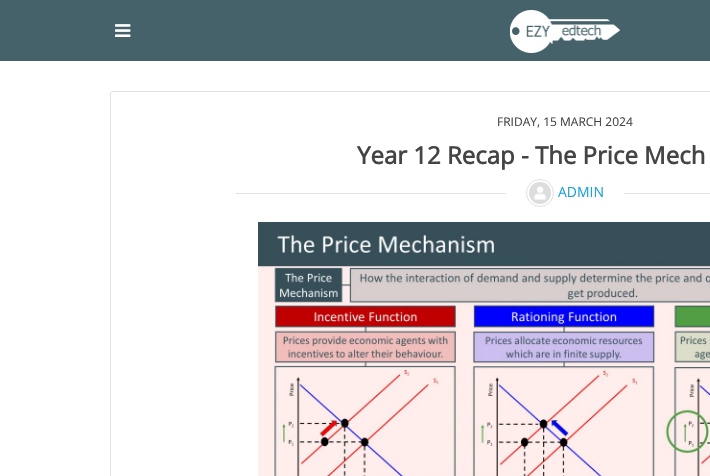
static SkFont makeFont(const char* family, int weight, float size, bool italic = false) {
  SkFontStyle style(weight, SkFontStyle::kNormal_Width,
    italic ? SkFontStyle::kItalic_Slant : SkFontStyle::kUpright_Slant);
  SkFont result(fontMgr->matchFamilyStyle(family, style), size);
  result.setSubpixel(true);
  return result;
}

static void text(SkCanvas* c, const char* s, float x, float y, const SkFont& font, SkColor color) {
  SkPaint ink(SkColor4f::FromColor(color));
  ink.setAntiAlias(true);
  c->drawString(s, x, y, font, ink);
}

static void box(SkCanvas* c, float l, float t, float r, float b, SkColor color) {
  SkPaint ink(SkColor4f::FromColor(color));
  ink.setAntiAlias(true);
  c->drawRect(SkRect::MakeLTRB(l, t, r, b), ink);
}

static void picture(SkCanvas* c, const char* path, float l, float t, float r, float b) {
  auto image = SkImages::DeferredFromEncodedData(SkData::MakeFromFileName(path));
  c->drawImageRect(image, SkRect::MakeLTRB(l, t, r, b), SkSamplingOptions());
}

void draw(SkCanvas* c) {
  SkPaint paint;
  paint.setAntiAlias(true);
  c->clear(0xffffffff);
  box(c, 0, 0, 710, 61, 0xff45626b);
  picture(c, "img_01.png", 115, 24, 131, 37);
  picture(c, "img_02.png", 510, 10, 620, 53);
  paint.setStyle(SkPaint::kStroke_Style);
  paint.setStrokeWidth(1);
  paint.setColor(0xffe1e1e1);
  c->drawRoundRect(SkRect::MakeLTRB(110.5f, 91.5f, 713.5f, 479.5f), 2.5f, 2.5f, paint);
  SkFont face1 = makeFont("Open Sans", 400, 12);
  text(c, "FRIDAY, 15 MARCH 2024", 497, 126, face1, 0xff444444);
  SkFont face2 = makeFont("Open Sans", 700, 24);
  text(c, "Year 12 Recap - The Price Mech", 357, 164, face2, 0xff444444);
  box(c, 236, 193, 710, 194, 0xffe1e1e1);
  box(c, 506, 193, 554, 194, 0xffffffff);
  box(c, 554, 193, 558, 201, 0xffffffff);
  box(c, 558, 193, 624, 194, 0xffffffff);
  c->drawCircle(540, 193, 13.5f, paint);
  picture(c, "img_03.png", 529, 182, 551, 204);
  SkFont face3 = makeFont("Open Sans", 400, 14);
  text(c, "ADMIN", 558, 197, face3, 0xff1fa2d6);
  picture(c, "img_04.png", 258, 222, 710, 476);
}
